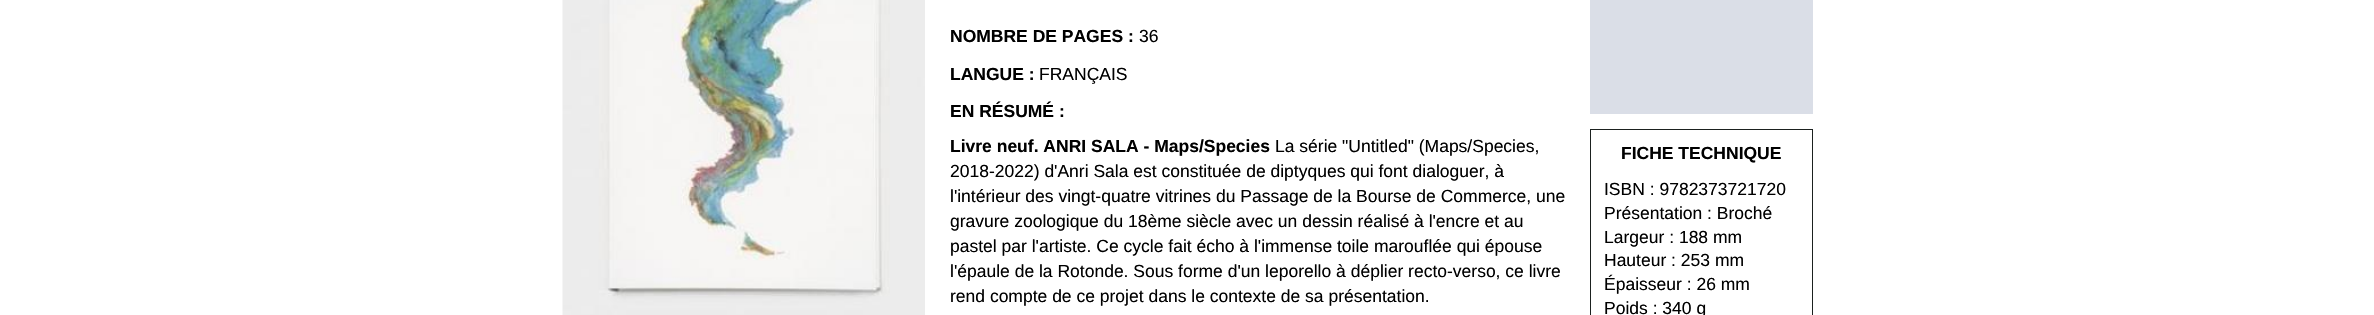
static SkFont makeFont(const char* family, int weight, float size, bool italic = false) {
  SkFontStyle style(weight, SkFontStyle::kNormal_Width,
    italic ? SkFontStyle::kItalic_Slant : SkFontStyle::kUpright_Slant);
  SkFont result(fontMgr->matchFamilyStyle(family, style), size);
  result.setSubpixel(true);
  return result;
}

static void text(SkCanvas* c, const char* s, float x, float y, const SkFont& font, SkColor color) {
  SkPaint ink(SkColor4f::FromColor(color));
  ink.setAntiAlias(true);
  c->drawString(s, x, y, font, ink);
}

static void box(SkCanvas* c, float l, float t, float r, float b, SkColor color) {
  SkPaint ink(SkColor4f::FromColor(color));
  ink.setAntiAlias(true);
  c->drawRect(SkRect::MakeLTRB(l, t, r, b), ink);
}

static void picture(SkCanvas* c, const char* path, float l, float t, float r, float b) {
  auto image = SkImages::DeferredFromEncodedData(SkData::MakeFromFileName(path));
  c->drawImageRect(image, SkRect::MakeLTRB(l, t, r, b), SkSamplingOptions());
}

void draw(SkCanvas* c) {
  SkPaint paint;
  paint.setAntiAlias(true);
  c->clear(0xffffffff);
  picture(c, "img_01.png", 562, 0, 925, 315);
  SkFont face1 = makeFont("Liberation Sans", 700, 17.5f);
  text(c, "NOMBRE DE PAGES :", 950, 42, face1, 0xff000000);
  SkFont face2 = makeFont("Liberation Sans", 400, 17.5f);
  text(c, "36", 1139, 42, face2, 0xff000000);
  text(c, "LANGUE :", 950, 80, face1, 0xff000000);
  text(c, "FRANÇAIS", 1039, 80, face2, 0xff000000);
  text(c, "EN RÉSUMÉ :", 950, 117, face1, 0xff000000);
  text(c, "Livre neuf. ANRI SALA - Maps/Species", 950, 152, face1, 0xff000000);
  text(c, "La série \"Untitled\" (Maps/Species,", 1275, 152, face2, 0xff000000);
  text(c, "2018-2022) d'Anri Sala est constituée de diptyques qui font dialoguer, à", 950, 177, face2, 0xff000000);
  text(c, "l'intérieur des vingt-quatre vitrines du Passage de la Bourse de Commerce, une", 950, 202, face2, 0xff000000);
  text(c, "gravure zoologique du 18ème siècle avec un dessin réalisé à l'encre et au", 950, 227, face2, 0xff000000);
  text(c, "pastel par l'artiste. Ce cycle fait écho à l'immense toile marouflée qui épouse", 950, 252, face2, 0xff000000);
  text(c, "l'épaule de la Rotonde. Sous forme d'un leporello à déplier recto-verso, ce livre", 950, 277, face2, 0xff000000);
  text(c, "rend compte de ce projet dans le contexte de sa présentation.", 950, 302, face2, 0xff000000);
  box(c, 1590, 0, 1813, 114, 0xffdadee7);
  paint.setStyle(SkPaint::kStroke_Style);
  paint.setStrokeWidth(1);
  paint.setColor(0xff1b211f);
  c->drawRect(SkRect::MakeLTRB(1590.5f, 129.5f, 1812.5f, 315.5f), paint);
  text(c, "FICHE TECHNIQUE", 1621, 159, face1, 0xff000000);
  text(c, "ISBN : 9782373721720", 1604, 195, face2, 0xff000000);
  text(c, "Présentation : Broché", 1604, 219, face2, 0xff000000);
  text(c, "Largeur : 188 mm", 1604, 243, face2, 0xff000000);
  text(c, "Hauteur : 253 mm", 1604, 266, face2, 0xff000000);
  text(c, "Épaisseur : 26 mm", 1604, 290, face2, 0xff000000);
  text(c, "Poids : 340 g", 1604, 314, face2, 0xff000000);
}
